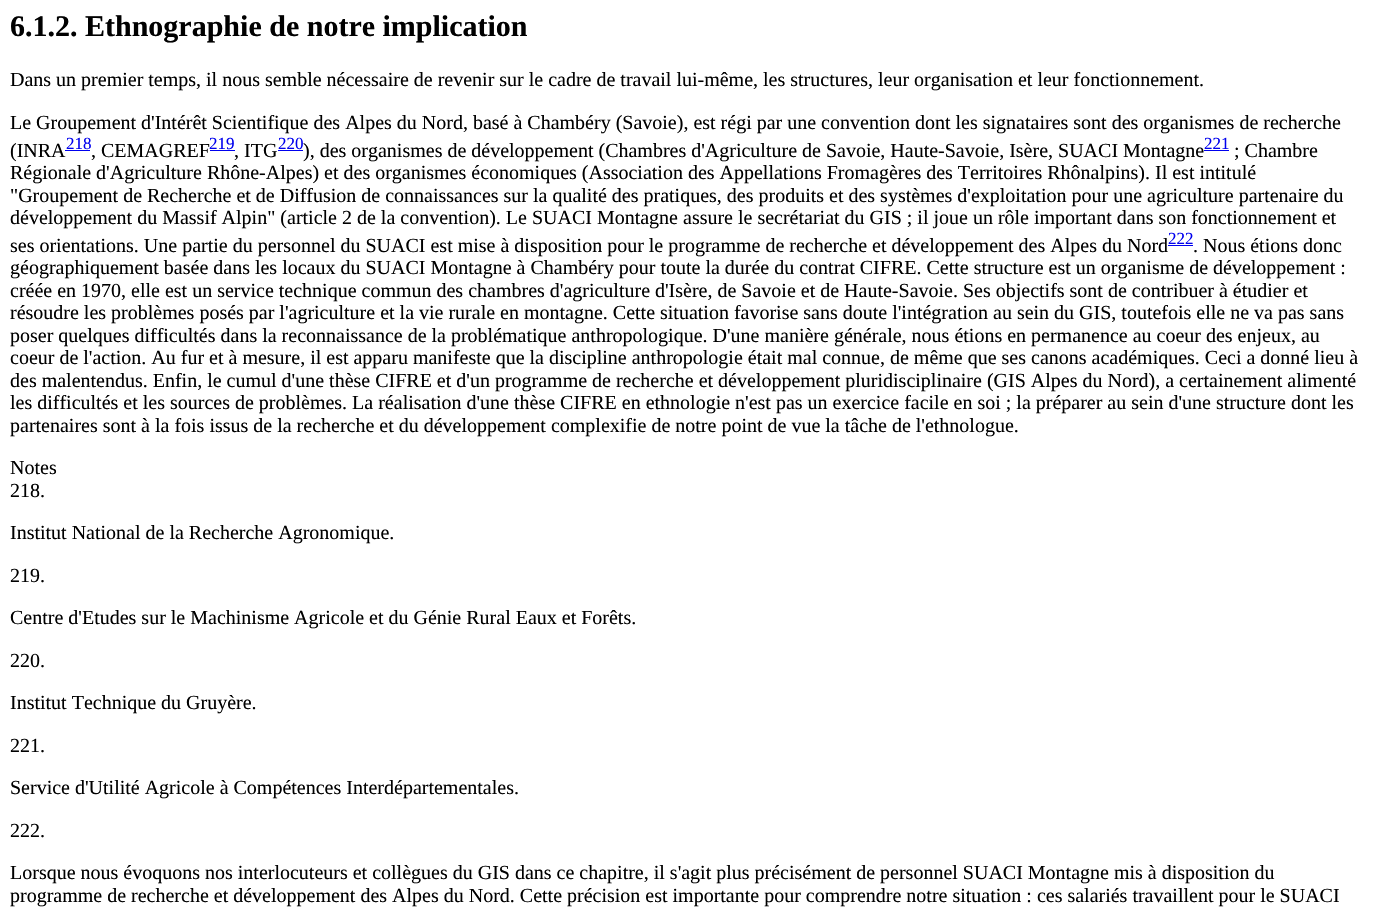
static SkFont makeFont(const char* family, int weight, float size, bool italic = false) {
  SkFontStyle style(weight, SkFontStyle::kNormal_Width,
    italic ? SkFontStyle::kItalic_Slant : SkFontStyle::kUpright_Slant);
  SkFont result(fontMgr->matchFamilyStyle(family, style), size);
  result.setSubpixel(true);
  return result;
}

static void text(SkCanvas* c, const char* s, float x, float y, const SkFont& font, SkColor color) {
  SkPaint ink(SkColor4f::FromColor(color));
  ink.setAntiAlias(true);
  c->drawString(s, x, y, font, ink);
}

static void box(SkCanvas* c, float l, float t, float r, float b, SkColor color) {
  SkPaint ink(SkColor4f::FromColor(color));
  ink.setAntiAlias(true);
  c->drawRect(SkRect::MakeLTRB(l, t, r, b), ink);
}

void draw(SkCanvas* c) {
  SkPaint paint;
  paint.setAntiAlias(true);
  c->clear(0xffffffff);
  SkFont face1 = makeFont("Liberation Serif", 700, 30);
  text(c, "6.1.2. Ethnographie de notre implication", 10, 36, face1, 0xff000000);
  SkFont face2 = makeFont("Liberation Serif", 400, 20);
  text(c, "Dans un premier temps, il nous semble nécessaire de revenir sur le cadre de travail lui-même, les structures, leur organisation et leur fonctionnement.", 10, 86, face2, 0xff000000);
  text(c, "Le Groupement d'Intérêt Scientifique des Alpes du Nord, basé à Chambéry (Savoie), est régi par une convention dont les signataires sont des organismes de recherche", 10, 129, face2, 0xff000000);
  text(c, "(INRA", 10, 157, face2, 0xff000000);
  SkFont face3 = makeFont("Liberation Serif", 400, 17);
  text(c, "218", 66, 149, face3, 0xff0000ee);
  box(c, 65, 150, 90, 151, 0xff0000ee);
  text(c, ", CEMAGREF", 91, 157, face2, 0xff000000);
  text(c, "219", 209, 149, face3, 0xff0000ee);
  box(c, 210, 150, 235, 151, 0xff0000ee);
  text(c, ", ITG", 234, 157, face2, 0xff000000);
  text(c, "220", 278, 149, face3, 0xff0000ee);
  box(c, 278, 150, 303, 151, 0xff0000ee);
  text(c, "), des organismes de développement (Chambres d'Agriculture de Savoie, Haute-Savoie, Isère, SUACI Montagne", 303, 157, face2, 0xff000000);
  text(c, "221", 1204, 149, face3, 0xff0000ee);
  box(c, 1204, 150, 1229, 151, 0xff0000ee);
  text(c, "; Chambre", 1234, 157, face2, 0xff000000);
  text(c, "Régionale d'Agriculture Rhône-Alpes) et des organismes économiques (Association des Appellations Fromagères des Territoires Rhônalpins). Il est intitulé", 10, 179, face2, 0xff000000);
  text(c, "\"Groupement de Recherche et de Diffusion de connaissances sur la qualité des pratiques, des produits et des systèmes d'exploitation pour une agriculture partenaire du", 10, 202, face2, 0xff000000);
  text(c, "développement du Massif Alpin\" (article 2 de la convention). Le SUACI Montagne assure le secrétariat du GIS ; il joue un rôle important dans son fonctionnement et", 10, 224, face2, 0xff000000);
  text(c, "ses orientations. Une partie du personnel du SUACI est mise à disposition pour le programme de recherche et développement des Alpes du Nord", 10, 252, face2, 0xff000000);
  text(c, "222", 1168, 244, face3, 0xff0000ee);
  box(c, 1168, 245, 1193, 246, 0xff0000ee);
  text(c, ". Nous étions donc", 1193, 252, face2, 0xff000000);
  text(c, "géographiquement basée dans les locaux du SUACI Montagne à Chambéry pour toute la durée du contrat CIFRE. Cette structure est un organisme de développement :", 10, 274, face2, 0xff000000);
  text(c, "créée en 1970, elle est un service technique commun des chambres d'agriculture d'Isère, de Savoie et de Haute-Savoie. Ses objectifs sont de contribuer à étudier et", 10, 297, face2, 0xff000000);
  text(c, "résoudre les problèmes posés par l'agriculture et la vie rurale en montagne. Cette situation favorise sans doute l'intégration au sein du GIS, toutefois elle ne va pas sans", 10, 319, face2, 0xff000000);
  text(c, "poser quelques difficultés dans la reconnaissance de la problématique anthropologique. D'une manière générale, nous étions en permanence au coeur des enjeux, au", 10, 342, face2, 0xff000000);
  text(c, "coeur de l'action. Au fur et à mesure, il est apparu manifeste que la discipline anthropologie était mal connue, de même que ses canons académiques. Ceci a donné lieu à", 10, 364, face2, 0xff000000);
  text(c, "des malentendus. Enfin, le cumul d'une thèse CIFRE et d'un programme de recherche et développement pluridisciplinaire (GIS Alpes du Nord), a certainement alimenté", 10, 387, face2, 0xff000000);
  text(c, "les difficultés et les sources de problèmes. La réalisation d'une thèse CIFRE en ethnologie n'est pas un exercice facile en soi ; la préparer au sein d'une structure dont les", 10, 409, face2, 0xff000000);
  text(c, "partenaires sont à la fois issus de la recherche et du développement complexifie de notre point de vue la tâche de l'ethnologue.", 10, 432, face2, 0xff000000);
  text(c, "Notes", 10, 474, face2, 0xff000000);
  text(c, "218.", 10, 497, face2, 0xff000000);
  text(c, "Institut National de la Recherche Agronomique.", 10, 539, face2, 0xff000000);
  text(c, "219.", 10, 582, face2, 0xff000000);
  text(c, "Centre d'Etudes sur le Machinisme Agricole et du Génie Rural Eaux et Forêts.", 10, 624, face2, 0xff000000);
  text(c, "220.", 10, 667, face2, 0xff000000);
  text(c, "Institut Technique du Gruyère.", 10, 709, face2, 0xff000000);
  text(c, "221.", 10, 752, face2, 0xff000000);
  text(c, "Service d'Utilité Agricole à Compétences Interdépartementales.", 10, 794, face2, 0xff000000);
  text(c, "222.", 10, 837, face2, 0xff000000);
  text(c, "Lorsque nous évoquons nos interlocuteurs et collègues du GIS dans ce chapitre, il s'agit plus précisément de personnel SUACI Montagne mis à disposition du", 10, 879, face2, 0xff000000);
  text(c, "programme de recherche et développement des Alpes du Nord. Cette précision est importante pour comprendre notre situation : ces salariés travaillent pour le SUACI", 10, 902, face2, 0xff000000);
}
